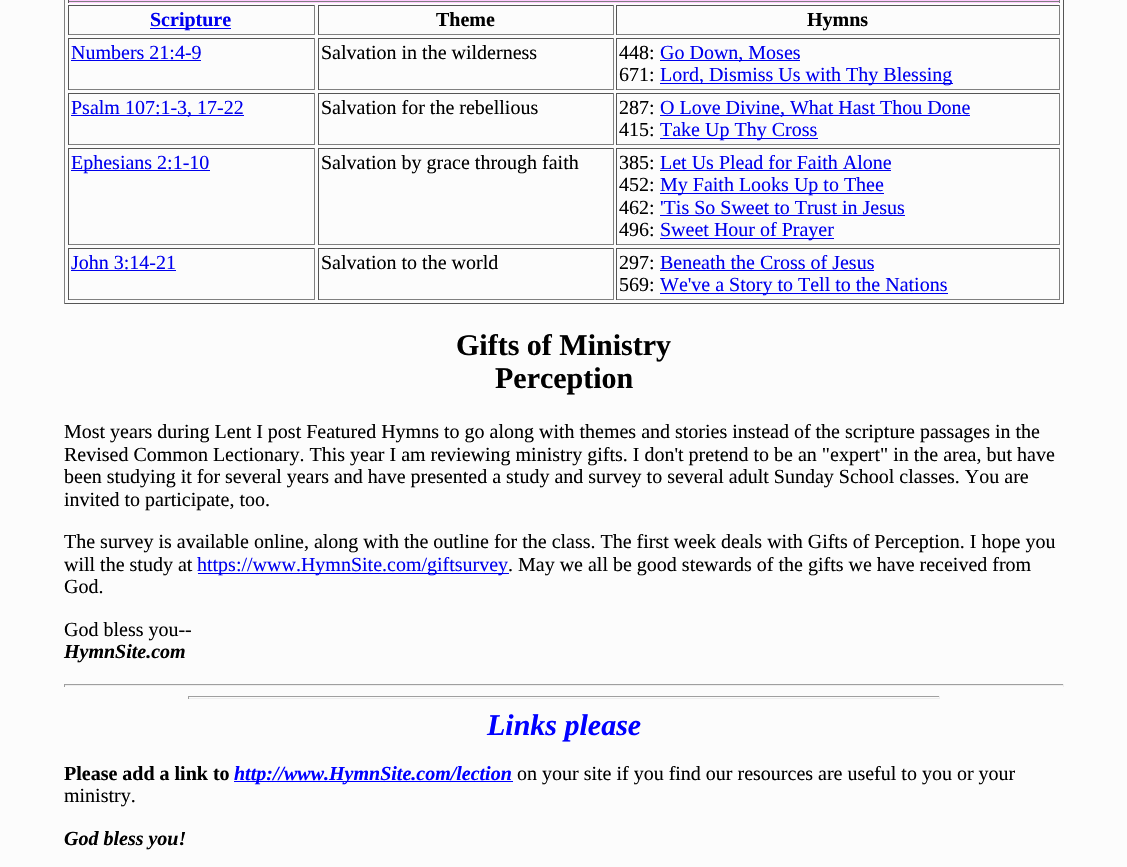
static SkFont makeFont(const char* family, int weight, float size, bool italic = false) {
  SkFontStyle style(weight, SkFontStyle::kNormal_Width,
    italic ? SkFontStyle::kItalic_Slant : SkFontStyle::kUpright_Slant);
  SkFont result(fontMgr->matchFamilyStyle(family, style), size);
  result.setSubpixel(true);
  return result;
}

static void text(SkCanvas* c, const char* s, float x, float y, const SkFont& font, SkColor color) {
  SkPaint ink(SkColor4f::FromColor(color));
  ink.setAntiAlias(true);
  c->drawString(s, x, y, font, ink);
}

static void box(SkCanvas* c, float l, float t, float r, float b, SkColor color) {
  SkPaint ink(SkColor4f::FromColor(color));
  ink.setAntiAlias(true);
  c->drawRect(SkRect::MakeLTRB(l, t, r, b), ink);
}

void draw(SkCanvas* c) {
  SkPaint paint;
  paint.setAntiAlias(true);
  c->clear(0xfffcfcfc);
  box(c, 1063, 0, 1064, 304, 0xff555555);
  box(c, 64, 303, 1064, 304, 0xff555555);
  box(c, 64, 0, 65, 304, 0xff808080);
  box(c, 68, 0, 1060, 3, 0xffffccff);
  box(c, 1059, 0, 1060, 3, 0xff808080);
  box(c, 68, 1, 1060, 2, 0xff808080);
  box(c, 68, 0, 69, 3, 0xff555555);
  box(c, 68, 5, 315, 6, 0xff555555);
  box(c, 314, 5, 315, 35, 0xff808080);
  box(c, 68, 34, 315, 35, 0xff808080);
  box(c, 68, 5, 69, 35, 0xff555555);
  box(c, 150, 28, 231, 29, 0xff0000ee);
  SkFont face1 = makeFont("Liberation Serif", 700, 20);
  text(c, "Scripture", 150, 26, face1, 0xff0000ee);
  box(c, 318, 5, 614, 6, 0xff555555);
  box(c, 613, 5, 614, 35, 0xff808080);
  box(c, 318, 34, 614, 35, 0xff808080);
  box(c, 318, 5, 319, 35, 0xff555555);
  text(c, "Theme", 436, 26, face1, 0xff000000);
  box(c, 616, 5, 1060, 6, 0xff555555);
  box(c, 1059, 5, 1060, 35, 0xff808080);
  box(c, 616, 34, 1060, 35, 0xff808080);
  box(c, 616, 5, 617, 35, 0xff555555);
  text(c, "Hymns", 807, 26, face1, 0xff000000);
  box(c, 68, 38, 315, 39, 0xff555555);
  box(c, 314, 38, 315, 90, 0xff808080);
  box(c, 68, 89, 315, 90, 0xff808080);
  box(c, 68, 38, 69, 90, 0xff555555);
  SkFont face2 = makeFont("Liberation Serif", 400, 20);
  text(c, "Numbers 21:4-9", 71, 59, face2, 0xff0000ee);
  box(c, 71, 60, 201, 61, 0xff0000ee);
  box(c, 318, 38, 614, 39, 0xff555555);
  box(c, 613, 38, 614, 90, 0xff808080);
  box(c, 318, 89, 614, 90, 0xff808080);
  box(c, 318, 38, 319, 90, 0xff555555);
  text(c, "Salvation in the wilderness", 321, 59, face2, 0xff000000);
  box(c, 616, 38, 1060, 39, 0xff555555);
  box(c, 1059, 38, 1060, 90, 0xff808080);
  box(c, 616, 89, 1060, 90, 0xff808080);
  box(c, 616, 38, 617, 90, 0xff555555);
  text(c, "448:", 619, 59, face2, 0xff000000);
  box(c, 660, 60, 800, 61, 0xff0000ee);
  text(c, "Go Down, Moses", 660, 59, face2, 0xff0000ee);
  text(c, "671:", 619, 81, face2, 0xff000000);
  box(c, 660, 83, 953, 84, 0xff0000ee);
  text(c, "Lord, Dismiss Us with Thy Blessing", 660, 81, face2, 0xff0000ee);
  box(c, 68, 93, 315, 94, 0xff555555);
  box(c, 314, 93, 315, 145, 0xff808080);
  box(c, 68, 144, 315, 145, 0xff808080);
  box(c, 68, 93, 69, 145, 0xff555555);
  box(c, 71, 115, 244, 116, 0xff0000ee);
  text(c, "Psalm 107:1-3, 17-22", 71, 114, face2, 0xff0000ee);
  box(c, 318, 93, 614, 94, 0xff555555);
  box(c, 613, 93, 614, 145, 0xff808080);
  box(c, 318, 144, 614, 145, 0xff808080);
  box(c, 318, 93, 319, 145, 0xff555555);
  text(c, "Salvation for the rebellious", 321, 114, face2, 0xff000000);
  box(c, 616, 93, 1060, 94, 0xff555555);
  box(c, 1059, 93, 1060, 145, 0xff808080);
  box(c, 616, 144, 1060, 145, 0xff808080);
  box(c, 616, 93, 617, 145, 0xff555555);
  text(c, "287:", 619, 114, face2, 0xff000000);
  box(c, 660, 115, 970, 116, 0xff0000ee);
  text(c, "O Love Divine, What Hast Thou Done", 660, 114, face2, 0xff0000ee);
  text(c, "415:", 619, 136, face2, 0xff000000);
  box(c, 660, 138, 818, 139, 0xff0000ee);
  text(c, "Take Up Thy Cross", 660, 136, face2, 0xff0000ee);
  box(c, 68, 148, 315, 149, 0xff555555);
  box(c, 314, 148, 315, 245, 0xff808080);
  box(c, 68, 244, 315, 245, 0xff808080);
  box(c, 68, 148, 69, 245, 0xff555555);
  box(c, 71, 170, 210, 171, 0xff0000ee);
  text(c, "Ephesians 2:1-10", 71, 169, face2, 0xff0000ee);
  box(c, 318, 148, 614, 149, 0xff555555);
  box(c, 613, 148, 614, 245, 0xff808080);
  box(c, 318, 244, 614, 245, 0xff808080);
  box(c, 318, 148, 319, 245, 0xff555555);
  text(c, "Salvation by grace through faith", 321, 169, face2, 0xff000000);
  box(c, 616, 148, 1060, 149, 0xff555555);
  box(c, 1059, 148, 1060, 245, 0xff808080);
  box(c, 616, 244, 1060, 245, 0xff808080);
  box(c, 616, 148, 617, 245, 0xff555555);
  text(c, "385:", 619, 169, face2, 0xff000000);
  text(c, "Let Us Plead for Faith Alone", 660, 169, face2, 0xff0000ee);
  box(c, 660, 170, 891, 171, 0xff0000ee);
  text(c, "452:", 619, 191, face2, 0xff000000);
  box(c, 660, 193, 884, 194, 0xff0000ee);
  text(c, "My Faith Looks Up to Thee", 660, 191, face2, 0xff0000ee);
  text(c, "462:", 619, 214, face2, 0xff000000);
  text(c, "'Tis So Sweet to Trust in Jesus", 660, 214, face2, 0xff0000ee);
  box(c, 660, 215, 905, 216, 0xff0000ee);
  text(c, "496:", 619, 236, face2, 0xff000000);
  box(c, 660, 238, 834, 239, 0xff0000ee);
  text(c, "Sweet Hour of Prayer", 660, 236, face2, 0xff0000ee);
  box(c, 68, 248, 315, 249, 0xff555555);
  box(c, 314, 248, 315, 300, 0xff808080);
  box(c, 68, 299, 315, 300, 0xff808080);
  box(c, 68, 248, 69, 300, 0xff555555);
  text(c, "John 3:14-21", 71, 269, face2, 0xff0000ee);
  box(c, 71, 270, 176, 271, 0xff0000ee);
  box(c, 318, 248, 614, 249, 0xff555555);
  box(c, 613, 248, 614, 300, 0xff808080);
  box(c, 318, 299, 614, 300, 0xff808080);
  box(c, 318, 248, 319, 300, 0xff555555);
  text(c, "Salvation to the world", 321, 269, face2, 0xff000000);
  box(c, 616, 248, 1060, 249, 0xff555555);
  box(c, 1059, 248, 1060, 300, 0xff808080);
  box(c, 616, 299, 1060, 300, 0xff808080);
  box(c, 616, 248, 617, 300, 0xff555555);
  text(c, "297:", 619, 269, face2, 0xff000000);
  text(c, "Beneath the Cross of Jesus", 660, 269, face2, 0xff0000ee);
  box(c, 660, 270, 874, 271, 0xff0000ee);
  text(c, "569:", 619, 291, face2, 0xff000000);
  box(c, 660, 293, 948, 294, 0xff0000ee);
  text(c, "We've a Story to Tell to the Nations", 660, 291, face2, 0xff0000ee);
  SkFont face3 = makeFont("Liberation Serif", 700, 30);
  text(c, "Gifts of Ministry", 456, 355, face3, 0xff000000);
  text(c, "Perception", 495, 388, face3, 0xff000000);
  text(c, "Most years during Lent I post Featured Hymns to go along with themes and stories instead of the scripture passages in the", 64, 438, face2, 0xff000000);
  text(c, "Revised Common Lectionary. This year I am reviewing ministry gifts. I don't pretend to be an \"expert\" in the area, but have", 64, 461, face2, 0xff000000);
  text(c, "been studying it for several years and have presented a study and survey to several adult Sunday School classes. You are", 64, 483, face2, 0xff000000);
  text(c, "invited to participate, too.", 64, 506, face2, 0xff000000);
  text(c, "The survey is available online, along with the outline for the class. The first week deals with Gifts of Perception. I hope you", 64, 548, face2, 0xff000000);
  text(c, "will the study at", 64, 571, face2, 0xff000000);
  box(c, 198, 573, 509, 574, 0xff0000ee);
  text(c, "https://www.HymnSite.com/giftsurvey", 197, 571, face2, 0xff0000ee);
  text(c, ". May we all be good stewards of the gifts we have received from", 508, 571, face2, 0xff000000);
  text(c, "God.", 64, 593, face2, 0xff000000);
  text(c, "God bless you--", 64, 636, face2, 0xff000000);
  SkFont face4 = makeFont("Liberation Serif", 700, 20, true);
  text(c, "HymnSite.com", 64, 658, face4, 0xff000000);
  box(c, 64, 684, 1064, 685, 0xff9f9f9f);
  box(c, 1063, 684, 1064, 687, 0xffeeeeee);
  box(c, 64, 685, 1064, 686, 0xffeeeeee);
  box(c, 64, 684, 65, 687, 0xff9f9f9f);
  box(c, 188, 696, 940, 697, 0xff9f9f9f);
  box(c, 939, 696, 940, 699, 0xffeeeeee);
  box(c, 188, 698, 940, 699, 0xffeeeeee);
  box(c, 188, 696, 189, 699, 0xff9f9f9f);
  SkFont face5 = makeFont("Liberation Serif", 700, 30, true);
  text(c, "Links please", 487, 735, face5, 0xff0000ff);
  text(c, "Please add a link to", 64, 780, face1, 0xff000000);
  box(c, 234, 781, 513, 782, 0xff0000ff);
  text(c, "http://www.HymnSite.com/lection", 234, 780, face4, 0xff0000ff);
  text(c, "on your site if you find our resources are useful to you or your", 517, 780, face2, 0xff000000);
  text(c, "ministry.", 64, 802, face2, 0xff000000);
  text(c, "God bless you!", 64, 845, face4, 0xff000000);
}
